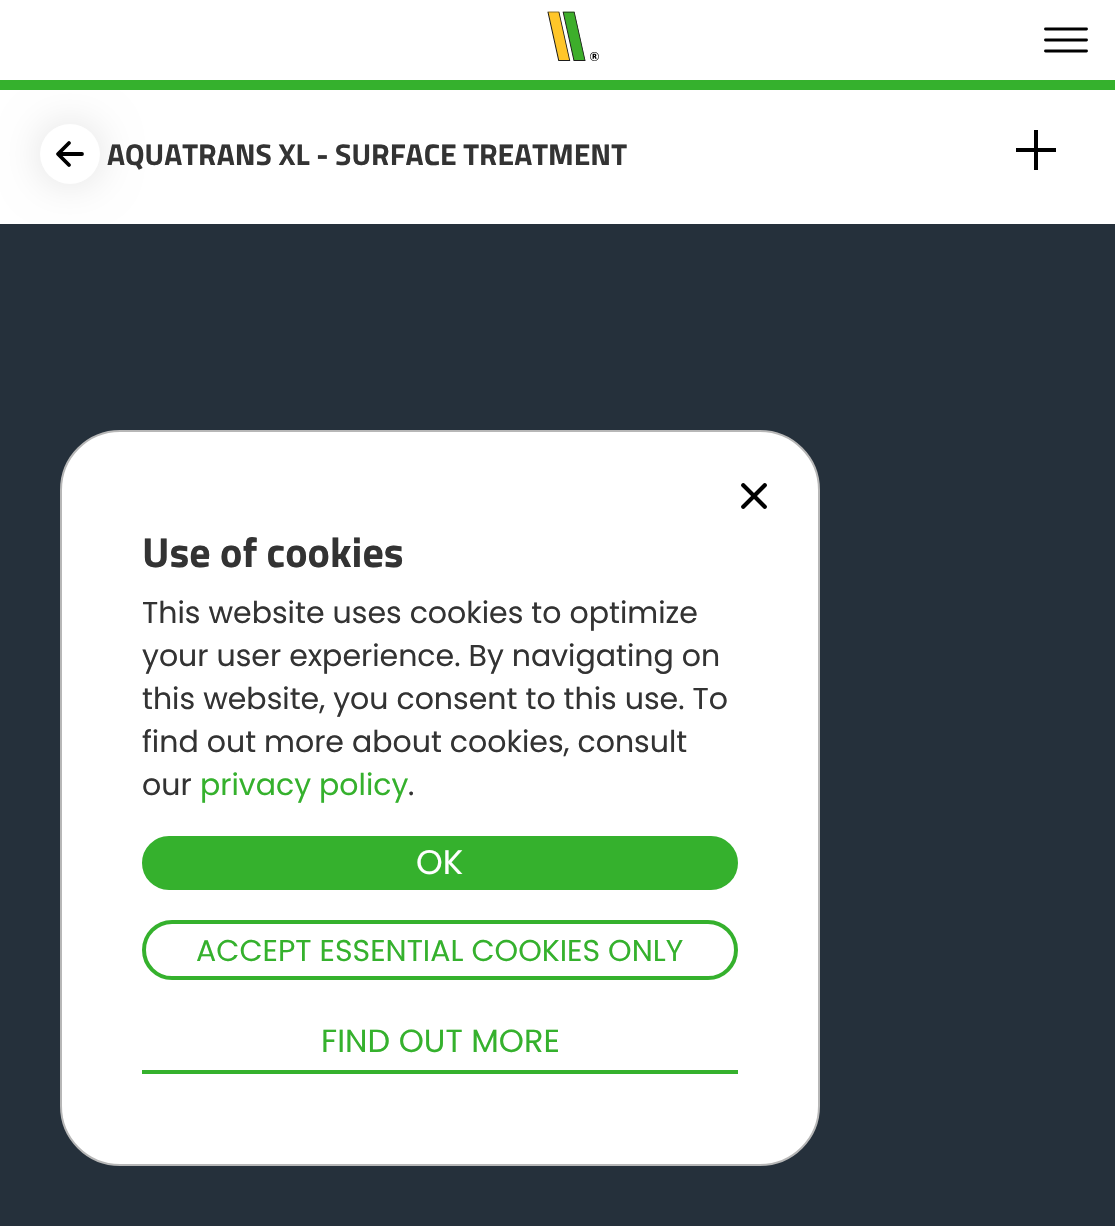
static SkFont makeFont(const char* family, int weight, float size, bool italic = false) {
  SkFontStyle style(weight, SkFontStyle::kNormal_Width,
    italic ? SkFontStyle::kItalic_Slant : SkFontStyle::kUpright_Slant);
  SkFont result(fontMgr->matchFamilyStyle(family, style), size);
  result.setSubpixel(true);
  return result;
}

static void text(SkCanvas* c, const char* s, float x, float y, const SkFont& font, SkColor color) {
  SkPaint ink(SkColor4f::FromColor(color));
  ink.setAntiAlias(true);
  c->drawString(s, x, y, font, ink);
}

static void box(SkCanvas* c, float l, float t, float r, float b, SkColor color) {
  SkPaint ink(SkColor4f::FromColor(color));
  ink.setAntiAlias(true);
  c->drawRect(SkRect::MakeLTRB(l, t, r, b), ink);
}

static void picture(SkCanvas* c, const char* path, float l, float t, float r, float b) {
  auto image = SkImages::DeferredFromEncodedData(SkData::MakeFromFileName(path));
  c->drawImageRect(image, SkRect::MakeLTRB(l, t, r, b), SkSamplingOptions());
}

void draw(SkCanvas* c) {
  SkPaint paint;
  paint.setAntiAlias(true);
  c->clear(0xff25303b);
  box(c, 0, 90, 1115, 224, 0xffffffff);
  paint.setColor(0x1f000000);
  paint.setMaskFilter(SkMaskFilter::MakeBlur(kNormal_SkBlurStyle, 20));
  c->drawRoundRect(SkRect::MakeLTRB(40, 124, 100, 184), 30, 30, paint);
  paint.setMaskFilter(nullptr);
  paint.setColor(0xffffffff);
  c->drawCircle(70, 154, 30, paint);
  paint.setStyle(SkPaint::kStroke_Style);
  paint.setStrokeWidth(3.8f);
  paint.setStrokeCap(SkPaint::kRound_Cap);
  paint.setStrokeJoin(SkPaint::kRound_Join);
  paint.setColor(0xff000000);
  c->drawPath(SkPathBuilder().moveTo(69, 165).lineTo(58, 154).lineTo(69, 143).moveTo(59.5f, 154).lineTo(82, 154).detach(), paint);
  SkFont face1 = makeFont("Titillium Web", 700, 30);
  text(c, "AQUATRANS XL - SURFACE TREATMENT", 107, 165, face1, 0xff333333);
  box(c, 1016, 148, 1056, 152, 0xff000000);
  box(c, 1034, 130, 1038, 170, 0xff000000);
  box(c, 0, 80, 1115, 90, 0xff35b12d);
  box(c, 0, 0, 1115, 80, 0xffffffff);
  picture(c, "img_01.png", 547, 11, 599, 61);
  paint.setStrokeWidth(2.9f);
  paint.setStrokeJoin(SkPaint::kMiter_Join);
  c->drawPath(SkPathBuilder().moveTo(1045.5f, 29).lineTo(1086.5f, 29).moveTo(1045.5f, 40).lineTo(1086.5f, 40).moveTo(1045.5f, 51).lineTo(1086.5f, 51).detach(), paint);
  paint.setStyle(SkPaint::kFill_Style);
  paint.setColor(0xffffffff);
  c->drawRoundRect(SkRect::MakeLTRB(61, 431, 819, 1165), 59, 59, paint);
  paint.setStyle(SkPaint::kStroke_Style);
  paint.setStrokeWidth(2);
  paint.setStrokeCap(SkPaint::kButt_Cap);
  paint.setColor(0xffb7b7b7);
  c->drawRoundRect(SkRect::MakeLTRB(61, 431, 819, 1165), 59, 59, paint);
  picture(c, "img_02.png", 741, 483, 767, 509);
  SkFont face2 = makeFont("Titillium Web", 700, 42);
  text(c, "Use of cookies", 142, 567, face2, 0xff333333);
  SkFont face3 = makeFont("Poppins", 400, 30);
  text(c, "This website uses cookies to optimize", 142, 623, face3, 0xff333333);
  text(c, "your user experience. By navigating on", 142, 666, face3, 0xff333333);
  text(c, "this website, you consent to this use. To", 142, 709, face3, 0xff333333);
  text(c, "find out more about cookies, consult", 142, 752, face3, 0xff333333);
  text(c, "our", 142, 795, face3, 0xff333333);
  text(c, "privacy policy", 200, 795, face3, 0xff35b12d);
  text(c, ".", 408, 795, face3, 0xff333333);
  paint.setStyle(SkPaint::kFill_Style);
  paint.setColor(0xff35b12d);
  c->drawRoundRect(SkRect::MakeLTRB(144, 838, 736, 888), 25, 25, paint);
  paint.setStyle(SkPaint::kStroke_Style);
  paint.setStrokeWidth(4);
  c->drawRoundRect(SkRect::MakeLTRB(144, 838, 736, 888), 25, 25, paint);
  SkFont face4 = makeFont("Poppins", 400, 34);
  text(c, "OK", 416, 874, face4, 0xffffffff);
  c->drawRoundRect(SkRect::MakeLTRB(144, 922, 736, 978), 28, 28, paint);
  text(c, "ACCEPT ESSENTIAL COOKIES ONLY", 196, 961, face3, 0xff35b12d);
  SkFont face5 = makeFont("Poppins", 400, 32);
  text(c, "FIND OUT MORE", 321, 1052, face5, 0xff35b12d);
  box(c, 142, 1070, 738, 1074, 0xff35b12d);
}
